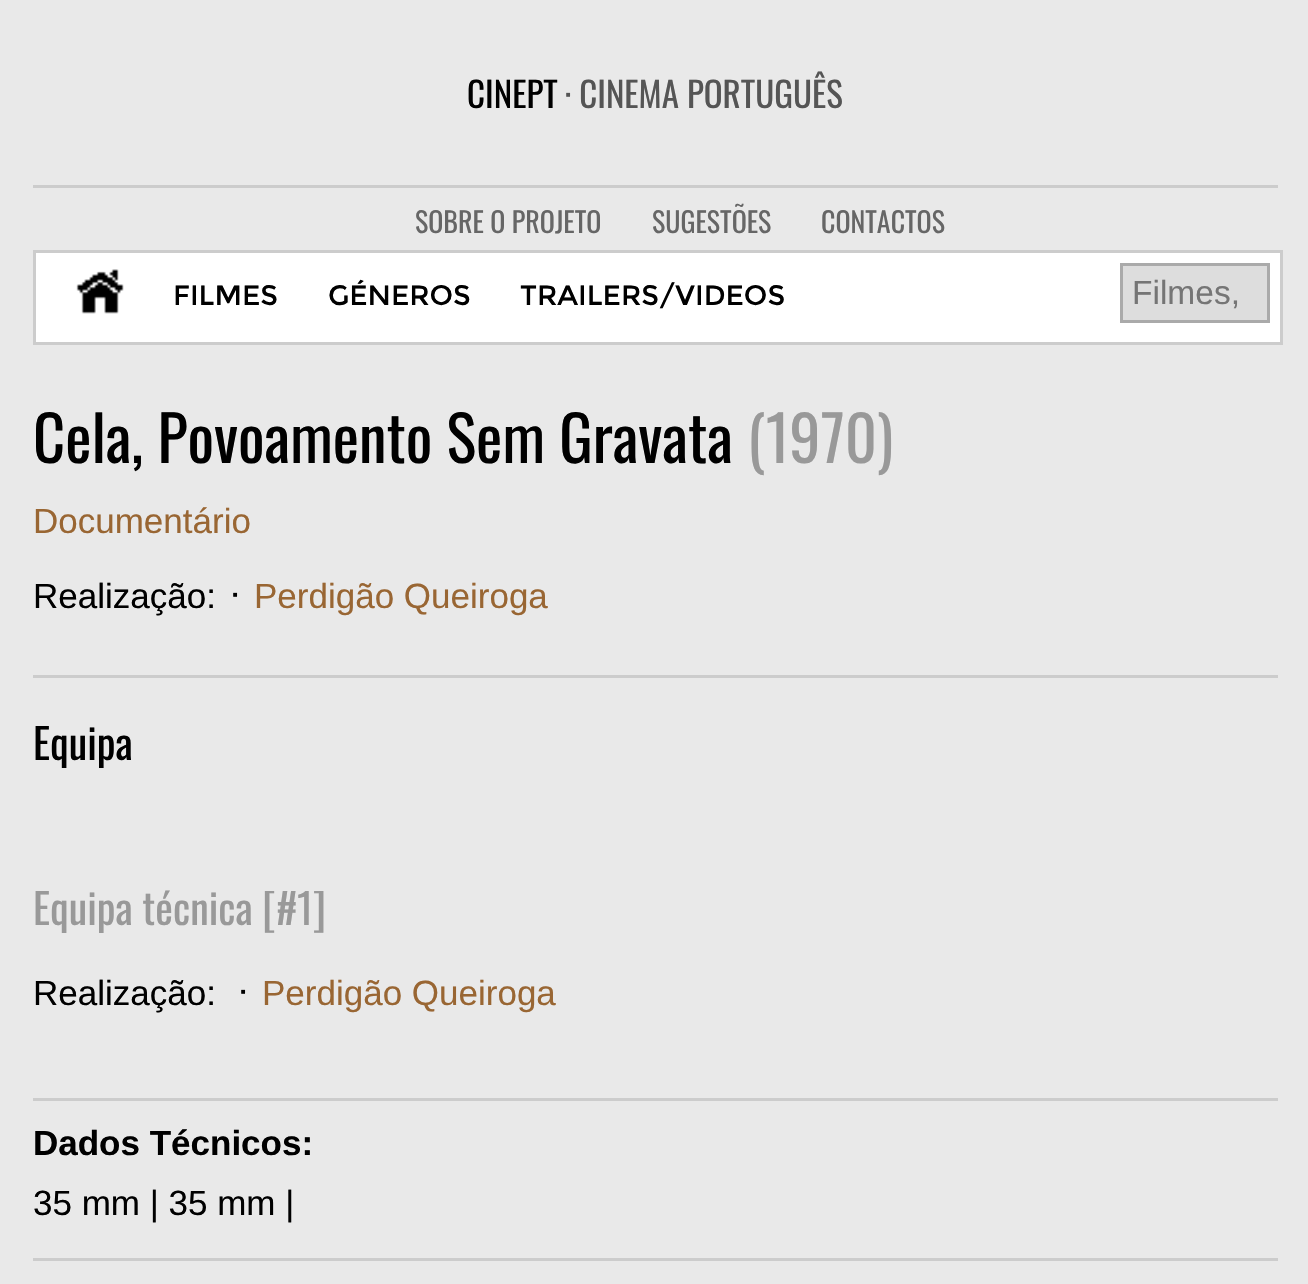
static SkFont makeFont(const char* family, int weight, float size, bool italic = false) {
  SkFontStyle style(weight, SkFontStyle::kNormal_Width,
    italic ? SkFontStyle::kItalic_Slant : SkFontStyle::kUpright_Slant);
  SkFont result(fontMgr->matchFamilyStyle(family, style), size);
  result.setSubpixel(true);
  return result;
}

static void text(SkCanvas* c, const char* s, float x, float y, const SkFont& font, SkColor color) {
  SkPaint ink(SkColor4f::FromColor(color));
  ink.setAntiAlias(true);
  c->drawString(s, x, y, font, ink);
}

static void box(SkCanvas* c, float l, float t, float r, float b, SkColor color) {
  SkPaint ink(SkColor4f::FromColor(color));
  ink.setAntiAlias(true);
  c->drawRect(SkRect::MakeLTRB(l, t, r, b), ink);
}

static void picture(SkCanvas* c, const char* path, float l, float t, float r, float b) {
  auto image = SkImages::DeferredFromEncodedData(SkData::MakeFromFileName(path));
  c->drawImageRect(image, SkRect::MakeLTRB(l, t, r, b), SkSamplingOptions());
}

void draw(SkCanvas* c) {
  SkPaint paint;
  paint.setAntiAlias(true);
  c->clear(0xffe9e9e9);
  SkFont face1 = makeFont("Oswald", 400, 35);
  text(c, "CINEPT", 467, 108, face1, 0xff000000);
  text(c, "· CINEMA PORTUGUÊS", 565, 108, face1, 0xff555555);
  box(c, 33, 185, 1278, 188, 0xffcccccc);
  SkFont face2 = makeFont("Oswald", 400, 28);
  text(c, "SOBRE O PROJETO", 415, 233, face2, 0xff666666);
  text(c, "SUGESTÕES", 652, 233, face2, 0xff666666);
  text(c, "CONTACTOS", 821, 233, face2, 0xff666666);
  paint.setColor(0xffffffff);
  c->drawRect(SkRect::MakeLTRB(34.5f, 251.5f, 1281.5f, 343.5f), paint);
  paint.setStyle(SkPaint::kStroke_Style);
  paint.setStrokeWidth(3);
  paint.setColor(0xffcccccc);
  c->drawRect(SkRect::MakeLTRB(34.5f, 251.5f, 1281.5f, 343.5f), paint);
  picture(c, "img_01.png", 76, 269, 124, 314);
  SkFont face3 = makeFont("Montserrat", 400, 28);
  text(c, "FILMES", 173, 305, face3, 0xff000000);
  text(c, "GÉNEROS", 328, 305, face3, 0xff000000);
  text(c, "TRAILERS/VIDEOS", 520, 305, face3, 0xff000000);
  paint.setStyle(SkPaint::kFill_Style);
  paint.setColor(0xffdddddd);
  c->drawRect(SkRect::MakeLTRB(1121.5f, 264.5f, 1268.5f, 321.5f), paint);
  paint.setStyle(SkPaint::kStroke_Style);
  paint.setColor(0xffaaaaaa);
  c->drawRect(SkRect::MakeLTRB(1121.5f, 264.5f, 1268.5f, 321.5f), paint);
  SkFont face4 = makeFont("Liberation Sans", 400, 33.5f);
  text(c, "Filmes,", 1132, 304, face4, 0xff757575);
  SkFont face5 = makeFont("Oswald", 400, 62.5f);
  text(c, "Cela, Povoamento Sem Gravata", 33, 463, face5, 0xff000000);
  text(c, "(1970)", 747, 463, face5, 0xff999999);
  SkFont face6 = makeFont("Liberation Sans", 400, 35);
  text(c, "Documentário", 33, 533, face6, 0xff996633);
  text(c, "Realização:", 33, 608, face6, 0xff000000);
  text(c, "·", 232, 608, face1, 0xff000000);
  text(c, "Perdigão Queiroga", 254, 608, face6, 0xff996633);
  box(c, 33, 675, 1278, 678, 0xffcccccc);
  SkFont face7 = makeFont("Oswald", 400, 42);
  text(c, "Equipa", 33, 760, face7, 0xff000000);
  text(c, "Equipa técnica [#1]", 33, 925, face7, 0xff999999);
  text(c, "Realização:", 33, 1005, face6, 0xff000000);
  text(c, "·", 240, 1005, face1, 0xff000000);
  text(c, "Perdigão Queiroga", 262, 1005, face6, 0xff996633);
  box(c, 33, 1098, 1278, 1101, 0xffcccccc);
  SkFont face8 = makeFont("Liberation Sans", 700, 35);
  text(c, "Dados Técnicos:", 33, 1155, face8, 0xff000000);
  text(c, "35 mm | 35 mm |", 33, 1215, face6, 0xff000000);
  box(c, 33, 1258, 1278, 1261, 0xffcccccc);
}
